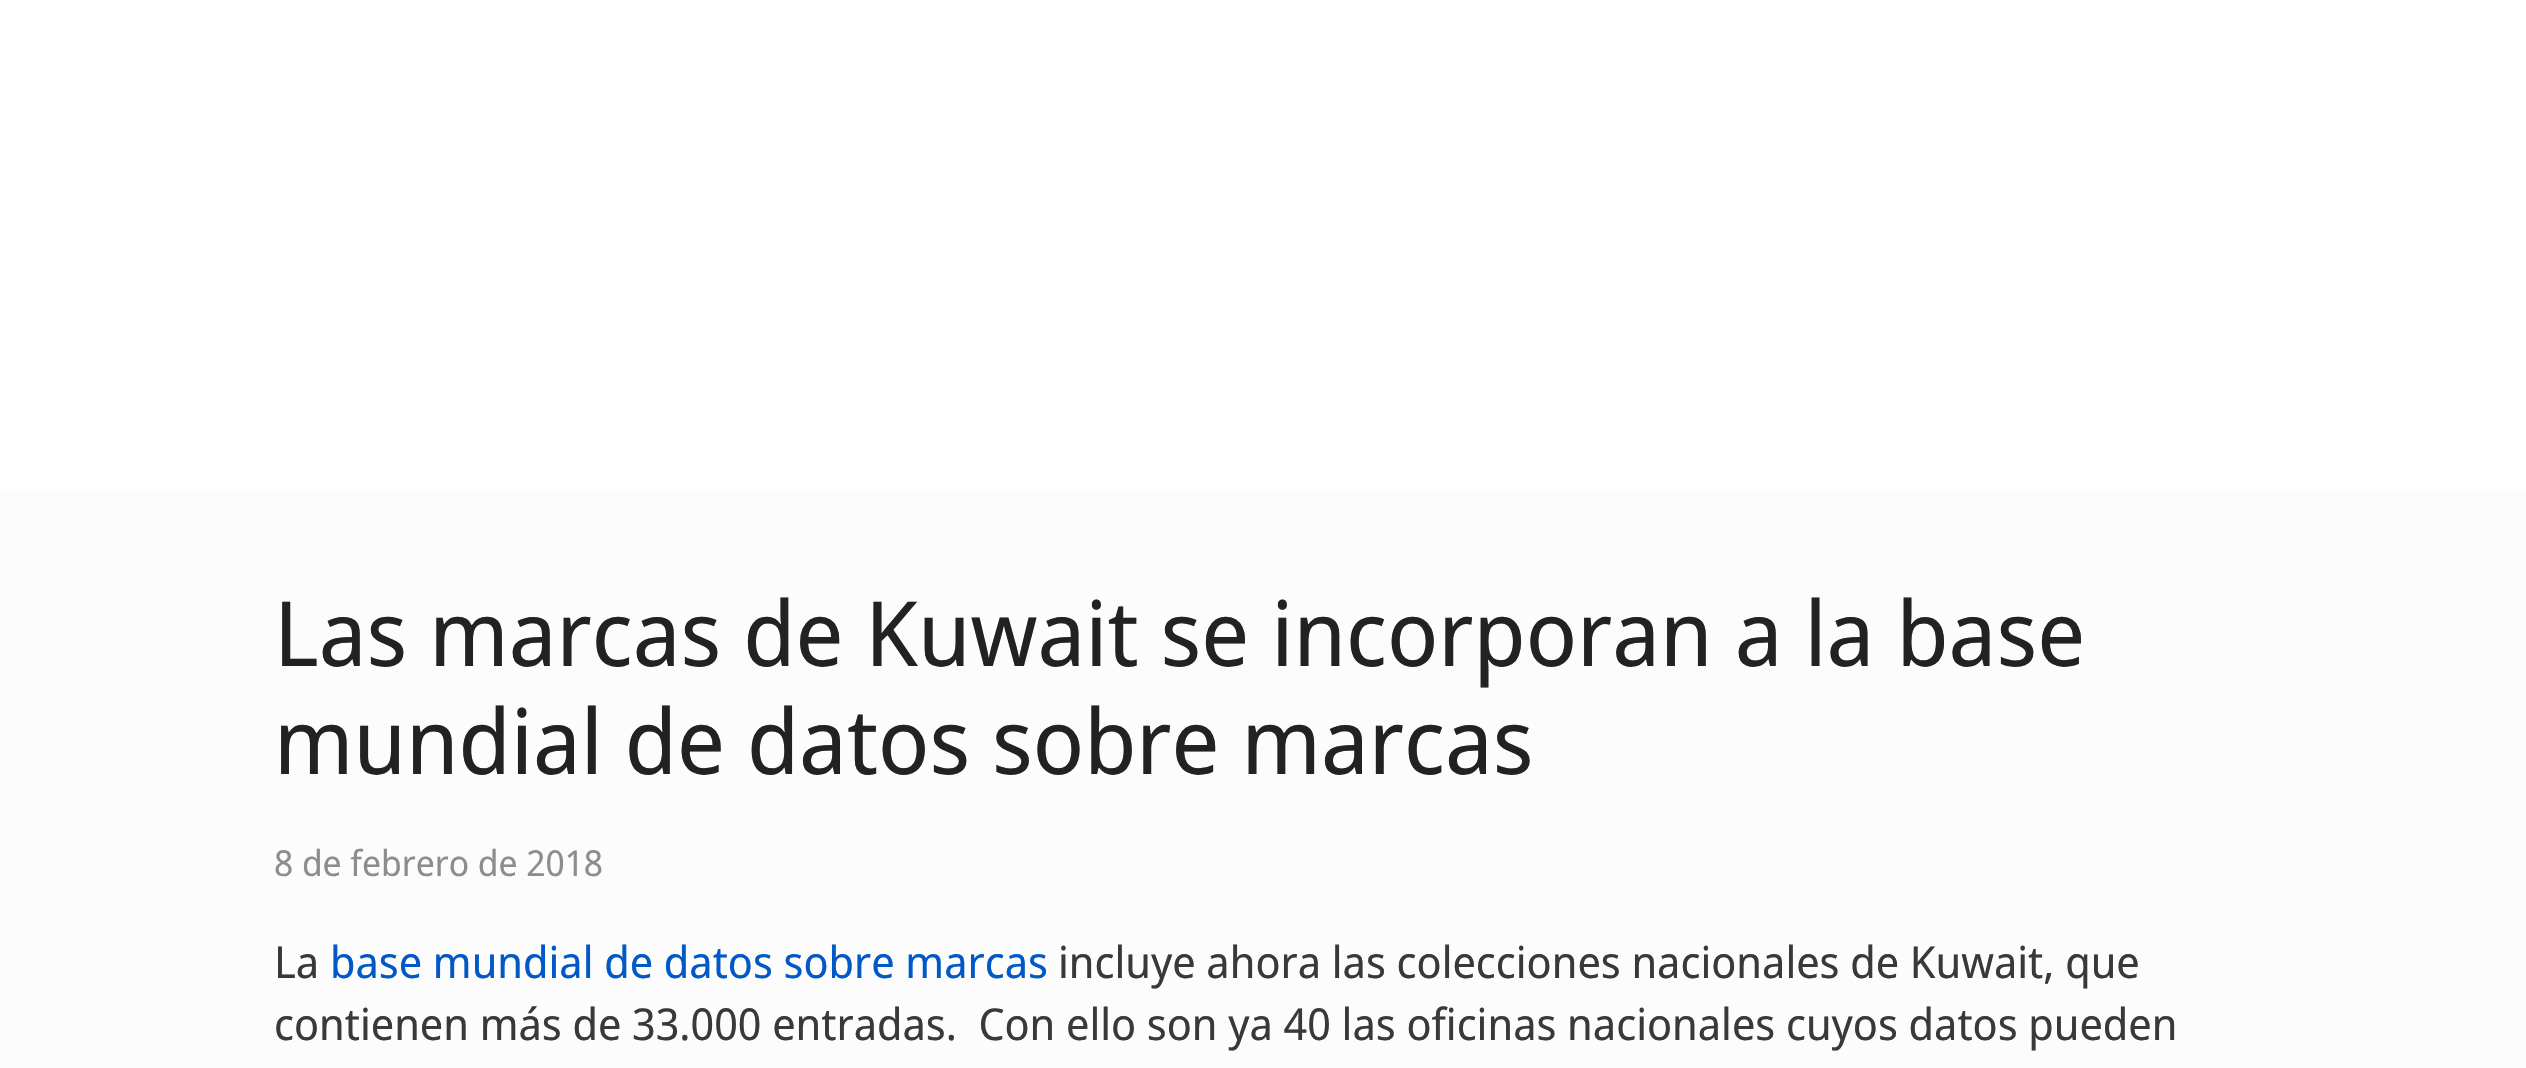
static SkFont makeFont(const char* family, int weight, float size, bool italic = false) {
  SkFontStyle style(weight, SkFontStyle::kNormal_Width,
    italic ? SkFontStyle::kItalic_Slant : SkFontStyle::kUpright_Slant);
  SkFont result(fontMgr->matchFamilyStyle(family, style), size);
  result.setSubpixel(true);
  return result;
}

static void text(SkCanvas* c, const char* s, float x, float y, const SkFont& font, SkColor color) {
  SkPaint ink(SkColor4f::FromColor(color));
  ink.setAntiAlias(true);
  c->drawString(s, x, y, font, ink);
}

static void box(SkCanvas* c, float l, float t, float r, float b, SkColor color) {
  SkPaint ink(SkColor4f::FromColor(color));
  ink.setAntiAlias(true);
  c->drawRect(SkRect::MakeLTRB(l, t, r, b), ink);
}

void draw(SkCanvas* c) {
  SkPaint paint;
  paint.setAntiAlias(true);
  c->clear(0xfffcfcfc);
  box(c, 0, 0, 2526, 490, 0xffffffff);
  SkFont face1 = makeFont("Noto Sans Display", 400, 90.1f);
  text(c, "Las marcas de Kuwait se incorporan a la base", 274, 666, face1, 0xff222222);
  text(c, "mundial de datos sobre marcas", 274, 774, face1, 0xff222222);
  SkFont face2 = makeFont("Noto Sans Display", 400, 35.75f);
  text(c, "8 de febrero de 2018", 274, 876, face2, 0xff8c8e8d);
  SkFont face3 = makeFont("Noto Sans Display", 400, 44);
  text(c, "La", 274, 978, face3, 0xff393939);
  text(c, "base mundial de datos sobre marcas", 330, 978, face3, 0xff0059c6);
  text(c, "incluye ahora las colecciones nacionales de Kuwait, que", 1058, 978, face3, 0xff393939);
  text(c, "contienen más de 33.000 entradas.  Con ello son ya 40 las oficinas nacionales cuyos datos pueden", 274, 1040, face3, 0xff393939);
}
